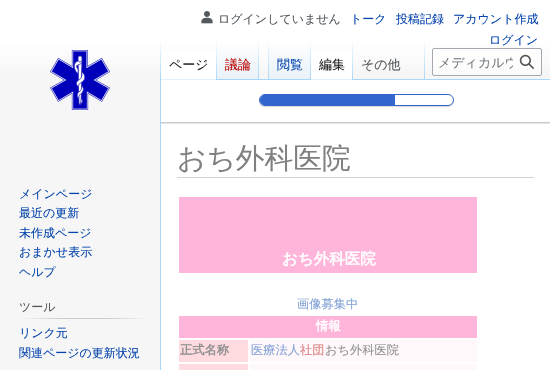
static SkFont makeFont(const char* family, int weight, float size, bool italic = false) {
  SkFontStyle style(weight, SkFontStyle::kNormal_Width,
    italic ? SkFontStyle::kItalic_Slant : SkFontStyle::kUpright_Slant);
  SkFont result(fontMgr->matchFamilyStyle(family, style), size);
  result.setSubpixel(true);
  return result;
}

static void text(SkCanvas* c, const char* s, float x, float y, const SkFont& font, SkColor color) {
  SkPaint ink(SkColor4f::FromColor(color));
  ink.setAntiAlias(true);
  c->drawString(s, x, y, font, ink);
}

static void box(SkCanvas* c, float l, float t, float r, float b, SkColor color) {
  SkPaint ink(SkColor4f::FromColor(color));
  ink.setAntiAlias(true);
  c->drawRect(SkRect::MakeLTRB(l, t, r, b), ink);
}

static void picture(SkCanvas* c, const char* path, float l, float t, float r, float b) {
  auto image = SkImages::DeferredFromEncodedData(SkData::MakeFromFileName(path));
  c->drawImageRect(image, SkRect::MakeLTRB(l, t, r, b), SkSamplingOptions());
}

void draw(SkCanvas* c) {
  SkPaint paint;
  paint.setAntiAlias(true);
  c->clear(0xfff6f6f6);
  {
    const SkColor colors[] = {0xffffffff, 0xfff6f6f6};
    const float stops[] = {0.5f, 1};
    const SkPoint ends[] = {{275, 0}, {275, 80}};
    paint.setShader(SkGradientShader::MakeLinear(ends, colors, stops, 2, SkTileMode::kClamp));
    paint.setAlpha(255);
  }
  c->drawRect(SkRect::MakeLTRB(0, 0, 550, 69), paint);
  picture(c, "img_01.png", 201, 11, 213, 24);
  SkFont face1 = makeFont("WenQuanYi Zen Hei", 500, 12);
  text(c, "ログインしていません", 218, 23, face1, 0xff54595d);
  text(c, "トーク", 350, 23, face1, 0xff0645ad);
  text(c, "投稿記録", 396, 23, face1, 0xff0645ad);
  text(c, "アカウント作成", 453, 23, face1, 0xff0645ad);
  text(c, "ログイン", 489, 44, face1, 0xff0645ad);
  box(c, 160, 79, 161, 370, 0xffa7d7f9);
  box(c, 161, 80, 550, 370, 0xffffffff);
  box(c, 259, 79, 550, 80, 0xffa7d7f9);
  c->save();
  c->clipRect(SkRect::MakeLTRB(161, 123, 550, 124));
  paint.setShader(nullptr);
  paint.setColor(0x1a000000);
  paint.setMaskFilter(SkMaskFilter::MakeBlur(kNormal_SkBlurStyle, 0.5f));
  c->drawRect(SkRect::MakeLTRB(161, 81, 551, 124), paint);
  paint.setMaskFilter(nullptr);
  c->restore();
  {
    const SkColor colors[] = {0x00a7d7f9, 0xffa7d7f9};
    const float stops[] = {0, 1};
    const SkPoint ends[] = {{161, 40}, {161, 80}};
    paint.setShader(SkGradientShader::MakeLinear(ends, colors, stops, 2, SkTileMode::kClamp));
    paint.setAlpha(255);
  }
  c->drawRect(SkRect::MakeLTRB(160, 40, 161, 80), paint);
  box(c, 161, 51, 217, 79, 0xffffffff);
  box(c, 161, 79, 217, 80, 0xffe1f1fc);
  {
    const SkColor colors[] = {0x00a7d7f9, 0xffa7d7f9};
    const float stops[] = {0, 1};
    const SkPoint ends[] = {{217, 40}, {217, 80}};
    paint.setShader(SkGradientShader::MakeLinear(ends, colors, stops, 2, SkTileMode::kClamp));
    paint.setAlpha(255);
  }
  c->drawRect(SkRect::MakeLTRB(216, 40, 217, 80), paint);
  SkFont face2 = makeFont("WenQuanYi Zen Hei", 500, 13);
  text(c, "ページ", 169, 69, face2, 0xff202122);
  {
    const SkColor colors[] = {0xff77c1f6, 0xffe8f2f8, 0xffffffff};
    const float stops[] = {0, 0.03f, 1};
    const SkPoint ends[] = {{238, 80}, {238, 40}};
    paint.setShader(SkGradientShader::MakeLinear(ends, colors, stops, 3, SkTileMode::kClamp));
    paint.setAlpha(255);
  }
  c->drawRect(SkRect::MakeLTRB(217, 46, 259, 80), paint);
  {
    const SkColor colors[] = {0x00a7d7f9, 0xffa7d7f9};
    const float stops[] = {0, 1};
    const SkPoint ends[] = {{259, 40}, {259, 80}};
    paint.setShader(SkGradientShader::MakeLinear(ends, colors, stops, 2, SkTileMode::kClamp));
    paint.setAlpha(255);
  }
  c->drawRect(SkRect::MakeLTRB(258, 40, 259, 80), paint);
  text(c, "議論", 225, 69, face2, 0xffba0000);
  {
    const SkColor colors[] = {0x00a7d7f9, 0xffa7d7f9};
    const float stops[] = {0, 1};
    const SkPoint ends[] = {{269, 40}, {269, 80}};
    paint.setShader(SkGradientShader::MakeLinear(ends, colors, stops, 2, SkTileMode::kClamp));
    paint.setAlpha(255);
  }
  c->drawRect(SkRect::MakeLTRB(268, 40, 269, 80), paint);
  {
    const SkColor colors[] = {0xff77c1f6, 0xffe8f2f8, 0xffffffff};
    const float stops[] = {0, 0.03f, 1};
    const SkPoint ends[] = {{290, 80}, {290, 40}};
    paint.setShader(SkGradientShader::MakeLinear(ends, colors, stops, 3, SkTileMode::kClamp));
    paint.setAlpha(255);
  }
  c->drawRect(SkRect::MakeLTRB(269, 46, 311, 79), paint);
  {
    const SkColor colors[] = {0x00a7d7f9, 0xffa7d7f9};
    const float stops[] = {0, 1};
    const SkPoint ends[] = {{311, 40}, {311, 80}};
    paint.setShader(SkGradientShader::MakeLinear(ends, colors, stops, 2, SkTileMode::kClamp));
    paint.setAlpha(255);
  }
  c->drawRect(SkRect::MakeLTRB(310, 40, 311, 80), paint);
  text(c, "閲覧", 277, 69, face2, 0xff0645ad);
  box(c, 311, 51, 353, 79, 0xffffffff);
  box(c, 311, 79, 353, 80, 0xffe1f1fc);
  {
    const SkColor colors[] = {0x00a7d7f9, 0xffa7d7f9};
    const float stops[] = {0, 1};
    const SkPoint ends[] = {{353, 40}, {353, 80}};
    paint.setShader(SkGradientShader::MakeLinear(ends, colors, stops, 2, SkTileMode::kClamp));
    paint.setAlpha(255);
  }
  c->drawRect(SkRect::MakeLTRB(352, 40, 353, 80), paint);
  text(c, "編集", 319, 69, face2, 0xff202122);
  {
    const SkColor colors[] = {0x00a7d7f9, 0xffa7d7f9};
    const float stops[] = {0, 1};
    const SkPoint ends[] = {{425, 40}, {425, 80}};
    paint.setShader(SkGradientShader::MakeLinear(ends, colors, stops, 2, SkTileMode::kClamp));
    paint.setAlpha(255);
  }
  c->drawRect(SkRect::MakeLTRB(424, 40, 425, 80), paint);
  text(c, "その他", 361, 69, face2, 0xff54595d);
  paint.setShader(nullptr);
  paint.setColor(0x80ffffff);
  c->drawRoundRect(SkRect::MakeLTRB(432.5f, 48.5f, 541.5f, 75.5f), 1.5f, 1.5f, paint);
  paint.setStyle(SkPaint::kStroke_Style);
  paint.setStrokeWidth(1);
  paint.setColor(0xffa2a9b1);
  c->drawRoundRect(SkRect::MakeLTRB(432.5f, 48.5f, 541.5f, 75.5f), 1.5f, 1.5f, paint);
  c->save();
  c->clipRect(SkRect::MakeLTRB(438, 54, 513, 72));
  text(c, "メディカルウ", 438, 67, face2, 0xff72777d);
  c->restore();
  picture(c, "img_02.png", 519, 54, 534, 69);
  picture(c, "img_03.png", 50, 50, 110, 110);
  text(c, "メインページ", 19, 198, face1, 0xff0645ad);
  text(c, "最近の更新", 19, 217, face1, 0xff0645ad);
  text(c, "未作成ページ", 19, 237, face1, 0xff0645ad);
  text(c, "おまかせ表示", 19, 256, face1, 0xff0645ad);
  text(c, "ヘルプ", 19, 276, face1, 0xff0645ad);
  paint.setStyle(SkPaint::kFill_Style);
  {
    const SkColor colors[] = {0xfff6f6f6, 0xffc8ccd1, 0xffc8ccd1, 0xfff6f6f6};
    const float stops[] = {0, 0.33f, 0.66f, 1};
    const SkPoint ends[] = {{19, 319}, {150, 319}};
    paint.setShader(SkGradientShader::MakeLinear(ends, colors, stops, 4, SkTileMode::kClamp));
    paint.setAlpha(255);
  }
  c->drawRect(SkRect::MakeLTRB(19, 318, 150, 319), paint);
  text(c, "ツール", 19, 311, face1, 0xff54595d);
  text(c, "リンク元", 19, 337, face1, 0xff0645ad);
  text(c, "関連ページの更新状況", 19, 357, face1, 0xff0645ad);
  box(c, 161, 122, 550, 123, 0xffc8ccd1);
  paint.setShader(nullptr);
  paint.setColor(0x26000000);
  paint.setMaskFilter(SkMaskFilter::MakeBlur(kNormal_SkBlurStyle, 0.5f));
  c->drawRoundRect(SkRect::MakeLTRB(259, 95, 454, 107), 6, 6, paint);
  paint.setMaskFilter(nullptr);
  paint.setColor(0xffffffff);
  c->drawRoundRect(SkRect::MakeLTRB(259.5f, 94.5f, 453.5f, 105.5f), 5.5f, 5.5f, paint);
  paint.setStyle(SkPaint::kStroke_Style);
  paint.setColor(0xff3366cc);
  c->drawRoundRect(SkRect::MakeLTRB(259.5f, 94.5f, 453.5f, 105.5f), 5.5f, 5.5f, paint);
  paint.setStyle(SkPaint::kFill_Style);
  c->drawPath(SkPathBuilder().moveTo(265, 95).lineTo(395, 95).lineTo(395, 105).lineTo(265, 105).cubicTo(262, 105, 260, 103, 260, 100).cubicTo(260, 97, 262, 95, 265, 95).close().detach(), paint);
  box(c, 177, 177, 534, 178, 0xffd1d4d8);
  SkFont face3 = makeFont("WenQuanYi Zen Hei", 500, 28.75f);
  text(c, "おち外科医院", 177, 168, face3, 0xff808080);
  box(c, 179, 197, 477, 273, 0xffffb4da);
  SkFont face4 = makeFont("WenQuanYi Zen Hei", 700, 15.5f);
  text(c, "おち外科医院", 282, 264, face4, 0xffffffff);
  SkFont face5 = makeFont("WenQuanYi Zen Hei", 500, 12.25f);
  text(c, "画像募集中", 297, 308, face5, 0xff83a2d6);
  box(c, 179, 316, 477, 338, 0xffffb4da);
  SkFont face6 = makeFont("WenQuanYi Zen Hei", 700, 12.25f);
  text(c, "情報", 316, 330, face6, 0xffffffff);
  box(c, 179, 340, 248, 362, 0xffffdbe0);
  text(c, "正式名称", 180, 354, face6, 0xff909091);
  box(c, 250, 340, 477, 362, 0xfffff8fa);
  text(c, "医療法人", 251, 354, face5, 0xff83a2d6);
  text(c, "社団", 300, 354, face5, 0xffdd8080);
  text(c, "おち外科医院", 325, 354, face5, 0xff909091);
  box(c, 179, 364, 248, 370, 0xffffdbe0);
  box(c, 250, 364, 477, 370, 0xfffff8fa);
}
